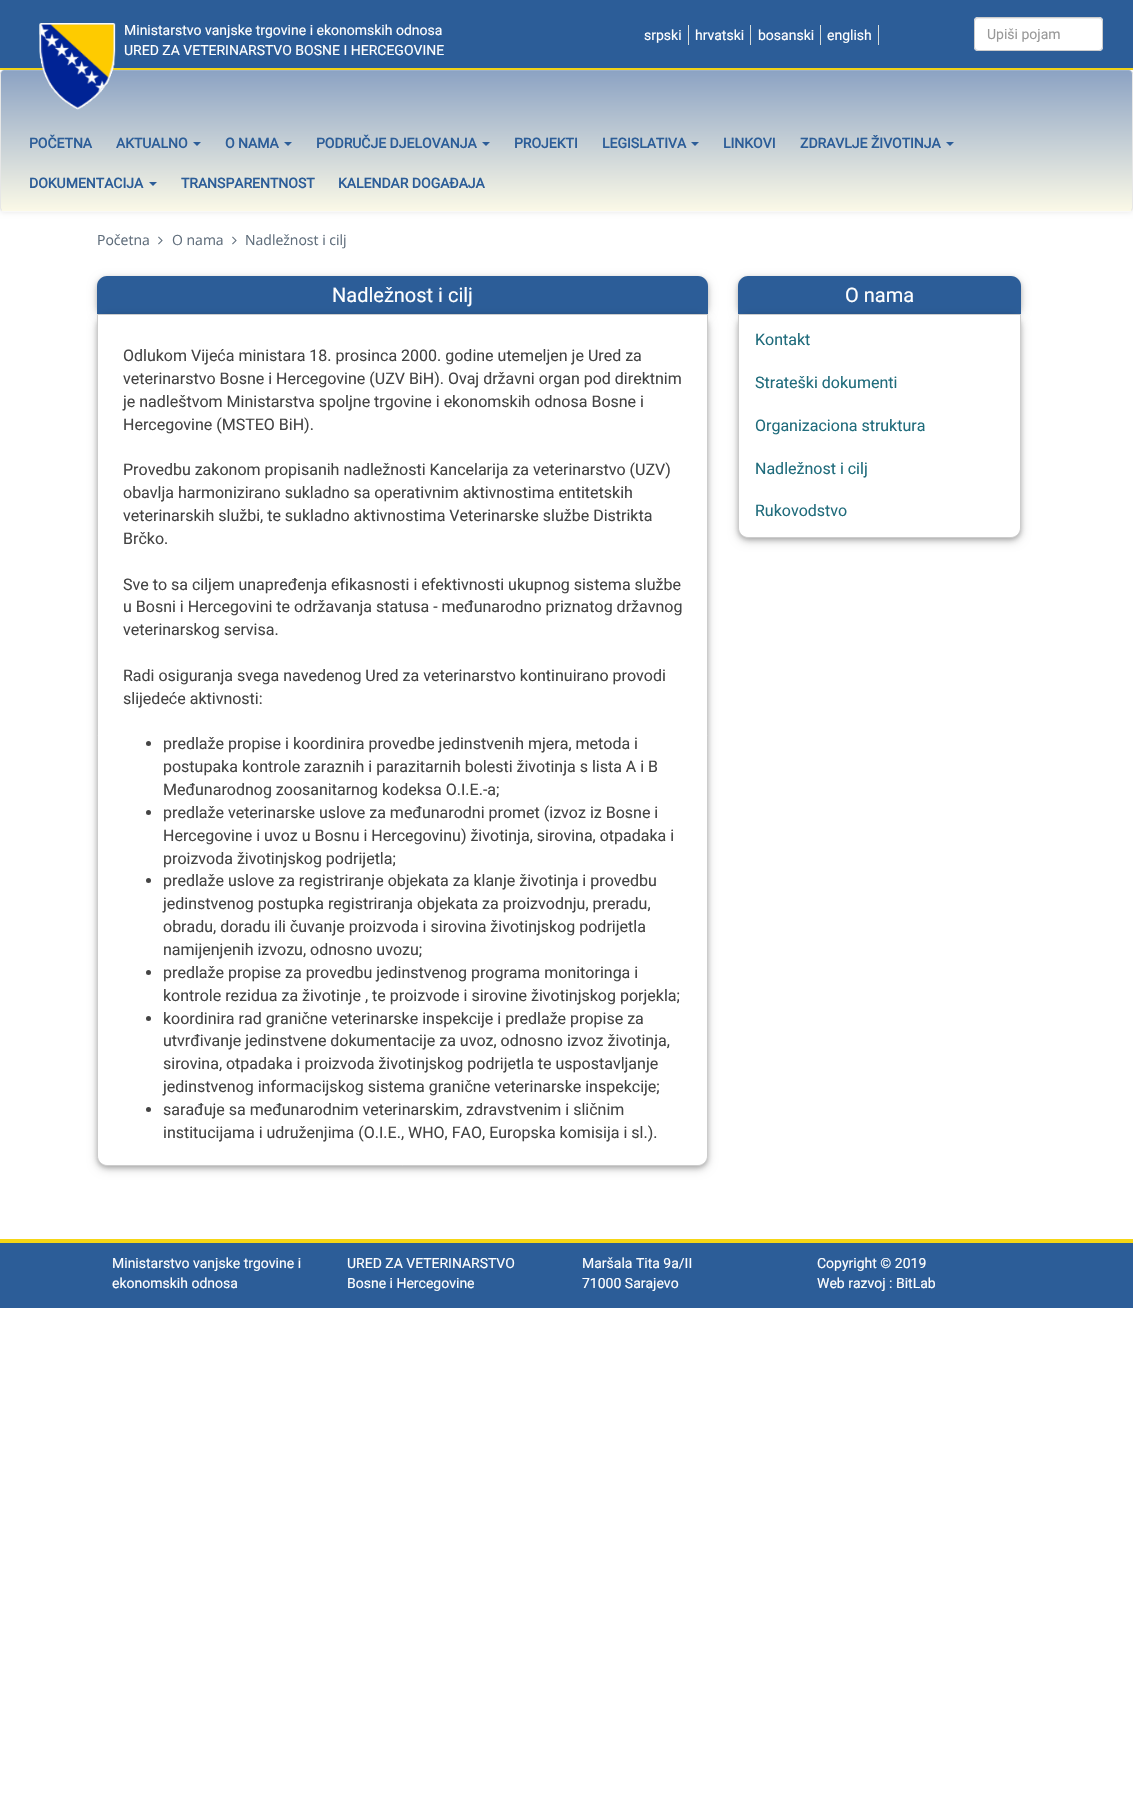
static SkFont makeFont(const char* family, int weight, float size, bool italic = false) {
  SkFontStyle style(weight, SkFontStyle::kNormal_Width,
    italic ? SkFontStyle::kItalic_Slant : SkFontStyle::kUpright_Slant);
  SkFont result(fontMgr->matchFamilyStyle(family, style), size);
  result.setSubpixel(true);
  return result;
}

static void text(SkCanvas* c, const char* s, float x, float y, const SkFont& font, SkColor color) {
  SkPaint ink(SkColor4f::FromColor(color));
  ink.setAntiAlias(true);
  c->drawString(s, x, y, font, ink);
}

static void box(SkCanvas* c, float l, float t, float r, float b, SkColor color) {
  SkPaint ink(SkColor4f::FromColor(color));
  ink.setAntiAlias(true);
  c->drawRect(SkRect::MakeLTRB(l, t, r, b), ink);
}

static void roundBox(SkCanvas* c, float l, float t, float r, float b, float radius, SkColor color) {
  SkPaint ink(SkColor4f::FromColor(color));
  ink.setAntiAlias(true);
  c->drawRoundRect(SkRect::MakeLTRB(l, t, r, b), radius, radius, ink);
}

static void picture(SkCanvas* c, const char* path, float l, float t, float r, float b) {
  auto image = SkImages::DeferredFromEncodedData(SkData::MakeFromFileName(path));
  c->drawImageRect(image, SkRect::MakeLTRB(l, t, r, b), SkSamplingOptions());
}

void draw(SkCanvas* c) {
  SkPaint paint;
  paint.setAntiAlias(true);
  c->clear(0xffffffff);
  box(c, 0, 0, 1133, 68, 0xff2c5d98);
  box(c, 0, 68, 1133, 70, 0xfff5d616);
  SkFont face1 = makeFont("Roboto", 400, 14);
  text(c, "Ministarstvo vanjske trgovine i ekonomskih odnosa", 124, 35, face1, 0xffffffff);
  text(c, "URED ZA VETERINARSTVO BOSNE I HERCEGOVINE", 124, 55, face1, 0xffffffff);
  box(c, 688, 25, 689, 45, 0xffd9dedb);
  text(c, "srpski", 644, 40, face1, 0xffffffff);
  box(c, 750, 25, 751, 45, 0xffd9dedb);
  text(c, "hrvatski", 695, 40, face1, 0xffffffff);
  box(c, 820, 25, 821, 45, 0xffd9dedb);
  text(c, "bosanski", 758, 40, face1, 0xffffffff);
  box(c, 878, 25, 879, 45, 0xffd9dedb);
  text(c, "english", 827, 40, face1, 0xffffffff);
  roundBox(c, 974, 17, 1103, 51, 4, 0xffffffff);
  paint.setColor(0xffececec);
  c->drawPath(SkPathBuilder().moveTo(978, 19).lineTo(1099, 19).cubicTo(1101, 19, 1102, 20, 1102, 22).lineTo(1102, 21).cubicTo(1102, 19, 1101, 18, 1099, 18).lineTo(978, 18).cubicTo(976, 18, 975, 19, 975, 21).lineTo(975, 22).cubicTo(975, 20, 976, 19, 978, 19).close().detach(), paint);
  paint.setStyle(SkPaint::kStroke_Style);
  paint.setStrokeWidth(1);
  paint.setColor(0xffcccccc);
  c->drawRoundRect(SkRect::MakeLTRB(974.5f, 17.5f, 1102.5f, 50.5f), 3.5f, 3.5f, paint);
  text(c, "Upiši pojam", 987, 39, face1, 0xff999999);
  paint.setStyle(SkPaint::kFill_Style);
  paint.setColor(0x12000000);
  paint.setMaskFilter(SkMaskFilter::MakeBlur(kNormal_SkBlurStyle, 2.5f));
  c->drawRoundRect(SkRect::MakeLTRB(0, 71, 1133, 213), 4, 4, paint);
  paint.setMaskFilter(nullptr);
  roundBox(c, 0, 70, 1133, 212, 4, 0xfff8f8f8);
  c->save();
  c->clipPath(SkPathBuilder().moveTo(4, 70).lineTo(1129, 70).cubicTo(1131, 70, 1133, 72, 1133, 74).lineTo(1133, 208).cubicTo(1133, 210, 1131, 212, 1129, 212).lineTo(4, 212).cubicTo(2, 212, 0, 210, 0, 208).lineTo(0, 74).cubicTo(0, 72, 2, 70, 4, 70).close().detach(), true);
  {
    const SkColor colors[] = {0xff8ba2c3, 0xfffbf9e7};
    const float stops[] = {0, 1};
    const SkPoint ends[] = {{567, 70}, {567, 211}};
    paint.setShader(SkGradientShader::MakeLinear(ends, colors, stops, 2, SkTileMode::kClamp));
    paint.setAlpha(255);
  }
  c->drawPath(SkPathBuilder().moveTo(4, 70).lineTo(1129, 70).cubicTo(1131, 70, 1133, 72, 1133, 74).lineTo(1133, 211).lineTo(0, 211).lineTo(0, 74).cubicTo(0, 72, 2, 70, 4, 70).close().detach(), paint);
  c->restore();
  paint.setShader(nullptr);
  paint.setColor(0x26ffffff);
  c->drawPath(SkPathBuilder().moveTo(4, 71).lineTo(1129, 71).cubicTo(1131, 71, 1132, 73, 1132, 75).cubicTo(1132, 73, 1132, 70, 1129, 70).lineTo(4, 70).cubicTo(1, 70, 1, 73, 1, 75).cubicTo(1, 73, 2, 71, 4, 71).close().detach(), paint);
  paint.setColor(0xffe7e7e7);
  c->drawPath(SkPathBuilder().moveTo(1133, 74).cubicTo(1133, 72, 1131, 70, 1129, 70).cubicTo(1131, 70, 1132, 72, 1132, 74).lineTo(1132, 208).lineTo(1131, 210).lineTo(1132, 211).lineTo(1133, 208).close().detach(), paint);
  c->drawPath(SkPathBuilder().moveTo(4, 70).cubicTo(2, 70, 0, 72, 0, 74).lineTo(0, 208).lineTo(1, 211).lineTo(2, 210).lineTo(1, 208).lineTo(1, 74).cubicTo(1, 72, 2, 70, 4, 70).close().detach(), paint);
  picture(c, "img_01.png", 39, 23, 116, 110);
  SkFont face2 = makeFont("Roboto", 700, 14);
  text(c, "POČETNA", 29, 148, face2, 0xff2c5d98);
  text(c, "AKTUALNO", 116, 148, face2, 0xff2c5d98);
  paint.setColor(0xff2c5d98);
  c->drawPath(SkPathBuilder().moveTo(193, 142).lineTo(201, 142).lineTo(197, 146).close().detach(), paint);
  text(c, "O NAMA", 225, 148, face2, 0xff2c5d98);
  c->drawPath(SkPathBuilder().moveTo(284, 142).lineTo(292, 142).lineTo(288, 146).close().detach(), paint);
  text(c, "PODRUČJE DJELOVANJA", 316, 148, face2, 0xff2c5d98);
  c->drawPath(SkPathBuilder().moveTo(482, 142).lineTo(490, 142).lineTo(486, 146).close().detach(), paint);
  text(c, "PROJEKTI", 514, 148, face2, 0xff2c5d98);
  text(c, "LEGISLATIVA", 602, 148, face2, 0xff2c5d98);
  c->drawPath(SkPathBuilder().moveTo(691, 142).lineTo(699, 142).lineTo(695, 146).close().detach(), paint);
  text(c, "LINKOVI", 723, 148, face2, 0xff2c5d98);
  text(c, "ZDRAVLJE ŽIVOTINJA", 800, 148, face2, 0xff2c5d98);
  c->drawPath(SkPathBuilder().moveTo(946, 142).lineTo(954, 142).lineTo(950, 146).close().detach(), paint);
  text(c, "DOKUMENTACIJA", 29, 188, face2, 0xff2c5d98);
  c->drawPath(SkPathBuilder().moveTo(149, 182).lineTo(157, 182).lineTo(153, 186).close().detach(), paint);
  text(c, "TRANSPARENTNOST", 181, 188, face2, 0xff2c5d98);
  text(c, "KALENDAR DOGAĐAJA", 338, 188, face2, 0xff2c5d98);
  SkFont face3 = makeFont("Open Sans", 400, 14);
  text(c, "Početna", 97, 245, face3, 0xff5f6d7b);
  picture(c, "img_02.png", 158, 236, 163, 245);
  text(c, "O nama", 172, 245, face3, 0xff5f6d7b);
  picture(c, "img_02.png", 232, 236, 237, 245);
  text(c, "Nadležnost i cilj", 245, 245, face3, 0xff5f6d7b);
  paint.setColor(0x30000000);
  paint.setMaskFilter(SkMaskFilter::MakeBlur(kNormal_SkBlurStyle, 5));
  c->drawRoundRect(SkRect::MakeLTRB(97, 279, 708, 317), 10, 10, paint);
  paint.setMaskFilter(nullptr);
  paint.setColor(0x33000000);
  paint.setMaskFilter(SkMaskFilter::MakeBlur(kNormal_SkBlurStyle, 2));
  c->drawRoundRect(SkRect::MakeLTRB(97, 278, 708, 316), 10, 10, paint);
  paint.setMaskFilter(nullptr);
  paint.setColor(0xff2c5d98);
  c->drawPath(SkPathBuilder().moveTo(107, 276).lineTo(698, 276).cubicTo(703.5f, 276, 708, 280.5f, 708, 286).lineTo(708, 314).lineTo(97, 314).lineTo(97, 286).cubicTo(97, 280.5f, 101.5f, 276, 107, 276).close().detach(), paint);
  paint.setColor(0x30000000);
  paint.setMaskFilter(SkMaskFilter::MakeBlur(kNormal_SkBlurStyle, 5));
  c->drawRoundRect(SkRect::MakeLTRB(97, 317, 708, 1169), 10, 10, paint);
  paint.setMaskFilter(nullptr);
  SkFont face4 = makeFont("Roboto", 400, 20);
  text(c, "Nadležnost i cilj", 332, 302, face4, 0xffffffff);
  paint.setColor(0x33000000);
  paint.setMaskFilter(SkMaskFilter::MakeBlur(kNormal_SkBlurStyle, 2));
  c->drawRoundRect(SkRect::MakeLTRB(97, 316, 708, 1168), 10, 10, paint);
  paint.setMaskFilter(nullptr);
  paint.setColor(0xffffffff);
  c->drawPath(SkPathBuilder().moveTo(97.5f, 314.5f).lineTo(707.5f, 314.5f).lineTo(707.5f, 1156).cubicTo(707.5f, 1161, 703, 1165.5f, 698, 1165.5f).lineTo(107, 1165.5f).cubicTo(102, 1165.5f, 97.5f, 1161, 97.5f, 1156).close().detach(), paint);
  paint.setStyle(SkPaint::kStroke_Style);
  paint.setColor(0xffcccccc);
  c->drawPath(SkPathBuilder().moveTo(97.5f, 314.5f).lineTo(707.5f, 314.5f).lineTo(707.5f, 1156).cubicTo(707.5f, 1161, 703, 1165.5f, 698, 1165.5f).lineTo(107, 1165.5f).cubicTo(102, 1165.5f, 97.5f, 1161, 97.5f, 1156).close().detach(), paint);
  SkFont face5 = makeFont("Roboto", 400, 16);
  text(c, "Odlukom Vijeća ministara 18. prosinca 2000. godine utemeljen je Ured za", 123, 361, face5, 0xff444444);
  text(c, "veterinarstvo Bosne i Hercegovine (UZV BiH). Ovaj državni organ pod direktnim", 123, 384, face5, 0xff444444);
  text(c, "je nadleštvom Ministarstva spoljne trgovine i ekonomskih odnosa Bosne i", 123, 407, face5, 0xff444444);
  text(c, "Hercegovine (MSTEO BiH).", 123, 430, face5, 0xff444444);
  text(c, "Provedbu zakonom propisanih nadležnosti Kancelarija za veterinarstvo (UZV)", 123, 475, face5, 0xff444444);
  text(c, "obavlja harmonizirano sukladno sa operativnim aktivnostima entitetskih", 123, 498, face5, 0xff444444);
  text(c, "veterinarskih službi, te sukladno aktivnostima Veterinarske službe Distrikta", 123, 521, face5, 0xff444444);
  text(c, "Brčko.", 123, 544, face5, 0xff444444);
  text(c, "Sve to sa ciljem unapređenja efikasnosti i efektivnosti ukupnog sistema službe", 123, 590, face5, 0xff444444);
  text(c, "u Bosni i Hercegovini te održavanja statusa - međunarodno priznatog državnog", 123, 612, face5, 0xff444444);
  text(c, "veterinarskog servisa.", 123, 635, face5, 0xff444444);
  text(c, "Radi osiguranja svega navedenog Ured za veterinarstvo kontinuirano provodi", 123, 681, face5, 0xff444444);
  text(c, "slijedeće aktivnosti:", 123, 704, face5, 0xff444444);
  paint.setStyle(SkPaint::kFill_Style);
  paint.setColor(0xff444444);
  c->drawCircle(148.5f, 743.5f, 2.5f, paint);
  text(c, "predlaže propise i koordinira provedbe jedinstvenih mjera, metoda i", 163, 749, face5, 0xff444444);
  text(c, "postupaka kontrole zaraznih i parazitarnih bolesti životinja s lista A i B", 163, 772, face5, 0xff444444);
  text(c, "Međunarodnog zoosanitarnog kodeksa O.I.E.-a;", 163, 795, face5, 0xff444444);
  c->drawCircle(148.5f, 812.5f, 2.5f, paint);
  text(c, "predlaže veterinarske uslove za međunarodni promet (izvoz iz Bosne i", 163, 818, face5, 0xff444444);
  text(c, "Hercegovine i uvoz u Bosnu i Hercegovinu) životinja, sirovina, otpadaka i", 163, 841, face5, 0xff444444);
  text(c, "proizvoda životinjskog podrijetla;", 163, 864, face5, 0xff444444);
  c->drawCircle(148.5f, 880.5f, 2.5f, paint);
  text(c, "predlaže uslove za registriranje objekata za klanje životinja i provedbu", 163, 886, face5, 0xff444444);
  text(c, "jedinstvenog postupka registriranja objekata za proizvodnju, preradu,", 163, 909, face5, 0xff444444);
  text(c, "obradu, doradu ili čuvanje proizvoda i sirovina životinjskog podrijetla", 163, 932, face5, 0xff444444);
  text(c, "namijenjenih izvozu, odnosno uvozu;", 163, 955, face5, 0xff444444);
  c->drawCircle(148.5f, 972.5f, 2.5f, paint);
  text(c, "predlaže propise za provedbu jedinstvenog programa monitoringa i", 163, 978, face5, 0xff444444);
  text(c, "kontrole rezidua za životinje , te proizvode i sirovine životinjskog porjekla;", 163, 1001, face5, 0xff444444);
  c->drawCircle(148.5f, 1018.5f, 2.5f, paint);
  text(c, "koordinira rad granične veterinarske inspekcije i predlaže propise za", 163, 1024, face5, 0xff444444);
  text(c, "utvrđivanje jedinstvene dokumentacije za uvoz, odnosno izvoz životinja,", 163, 1046, face5, 0xff444444);
  text(c, "sirovina, otpadaka i proizvoda životinjskog podrijetla te uspostavljanje", 163, 1069, face5, 0xff444444);
  text(c, "jedinstvenog informacijskog sistema granične veterinarske inspekcije;", 163, 1092, face5, 0xff444444);
  c->drawCircle(148.5f, 1109.5f, 2.5f, paint);
  text(c, "sarađuje sa međunarodnim veterinarskim, zdravstvenim i sličnim", 163, 1115, face5, 0xff444444);
  text(c, "institucijama i udruženjima (O.I.E., WHO, FAO, Europska komisija i sl.).", 163, 1138, face5, 0xff444444);
  paint.setColor(0x30000000);
  paint.setMaskFilter(SkMaskFilter::MakeBlur(kNormal_SkBlurStyle, 5));
  c->drawRoundRect(SkRect::MakeLTRB(738, 279, 1021, 317), 10, 10, paint);
  paint.setMaskFilter(nullptr);
  paint.setColor(0x33000000);
  paint.setMaskFilter(SkMaskFilter::MakeBlur(kNormal_SkBlurStyle, 2));
  c->drawRoundRect(SkRect::MakeLTRB(738, 278, 1021, 316), 10, 10, paint);
  paint.setMaskFilter(nullptr);
  paint.setColor(0xff2c5d98);
  c->drawPath(SkPathBuilder().moveTo(748, 276).lineTo(1011, 276).cubicTo(1016.5f, 276, 1021, 280.5f, 1021, 286).lineTo(1021, 314).lineTo(738, 314).lineTo(738, 286).cubicTo(738, 280.5f, 742.5f, 276, 748, 276).close().detach(), paint);
  paint.setColor(0x30000000);
  paint.setMaskFilter(SkMaskFilter::MakeBlur(kNormal_SkBlurStyle, 5));
  c->drawRoundRect(SkRect::MakeLTRB(738, 317, 1021, 541), 10, 10, paint);
  paint.setMaskFilter(nullptr);
  text(c, "O nama", 845, 302, face4, 0xffffffff);
  paint.setColor(0x33000000);
  paint.setMaskFilter(SkMaskFilter::MakeBlur(kNormal_SkBlurStyle, 2));
  c->drawRoundRect(SkRect::MakeLTRB(738, 316, 1021, 540), 10, 10, paint);
  paint.setMaskFilter(nullptr);
  paint.setColor(0xffffffff);
  c->drawPath(SkPathBuilder().moveTo(738.5f, 314.5f).lineTo(1020.5f, 314.5f).lineTo(1020.5f, 528).cubicTo(1020.5f, 533, 1016, 537.5f, 1011, 537.5f).lineTo(748, 537.5f).cubicTo(743, 537.5f, 738.5f, 533, 738.5f, 528).close().detach(), paint);
  paint.setStyle(SkPaint::kStroke_Style);
  paint.setColor(0xffcccccc);
  c->drawPath(SkPathBuilder().moveTo(738.5f, 314.5f).lineTo(1020.5f, 314.5f).lineTo(1020.5f, 528).cubicTo(1020.5f, 533, 1016, 537.5f, 1011, 537.5f).lineTo(748, 537.5f).cubicTo(743, 537.5f, 738.5f, 533, 738.5f, 528).close().detach(), paint);
  text(c, "Kontakt", 755, 345, face5, 0xff206c7c);
  text(c, "Strateški dokumenti", 755, 388, face5, 0xff206c7c);
  text(c, "Organizaciona struktura", 755, 431, face5, 0xff206c7c);
  text(c, "Nadležnost i cilj", 755, 474, face5, 0xff206c7c);
  text(c, "Rukovodstvo", 755, 516, face5, 0xff206c7c);
  box(c, 0, 1243, 1133, 1308, 0xff2c5d98);
  box(c, 0, 1239, 1133, 1243, 0xfff5d616);
  text(c, "Ministarstvo vanjske trgovine i", 112, 1268, face1, 0xffffffff);
  text(c, "ekonomskih odnosa", 112, 1288, face1, 0xffffffff);
  text(c, "URED ZA VETERINARSTVO", 347, 1268, face1, 0xffffffff);
  text(c, "Bosne i Hercegovine", 347, 1288, face1, 0xffffffff);
  text(c, "Maršala Tita 9a/II", 582, 1268, face1, 0xffffffff);
  text(c, "71000 Sarajevo", 582, 1288, face1, 0xffffffff);
  text(c, "Copyright © 2019", 817, 1268, face1, 0xffffffff);
  text(c, "Web razvoj : BitLab", 817, 1288, face1, 0xffffffff);
}
